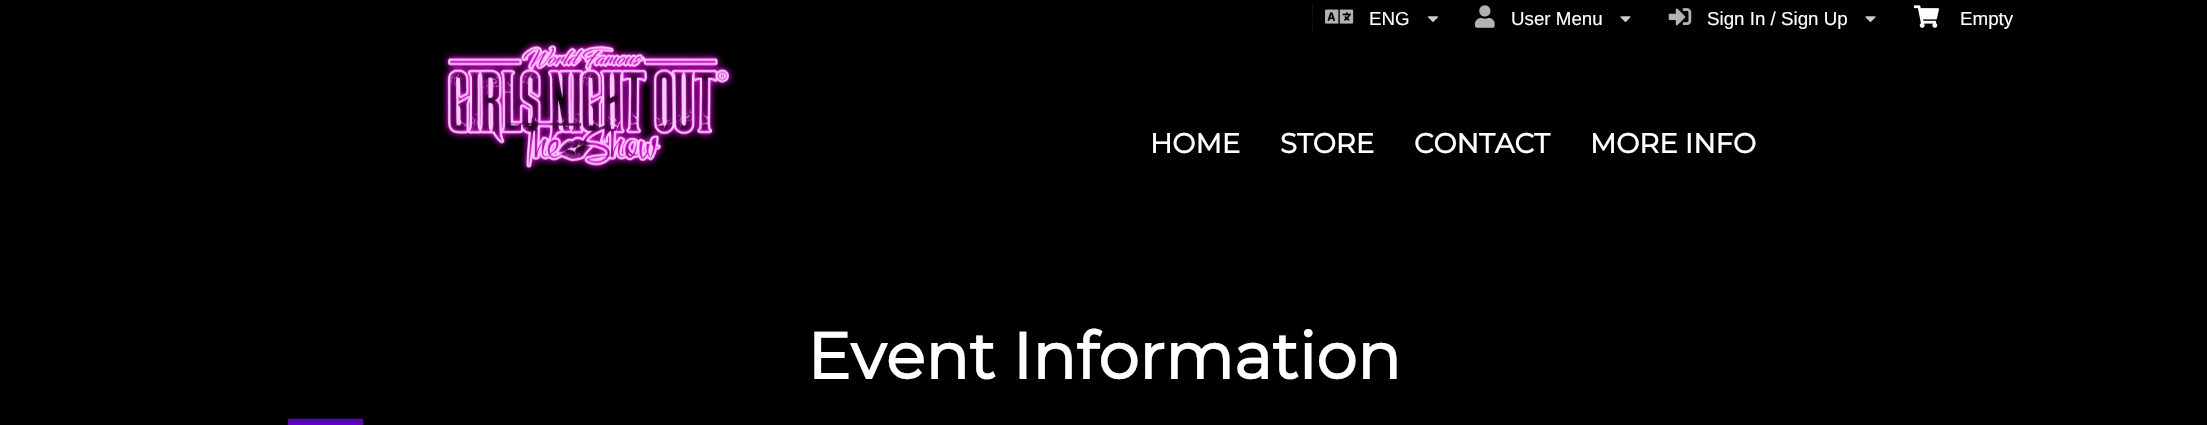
static SkFont makeFont(const char* family, int weight, float size, bool italic = false) {
  SkFontStyle style(weight, SkFontStyle::kNormal_Width,
    italic ? SkFontStyle::kItalic_Slant : SkFontStyle::kUpright_Slant);
  SkFont result(fontMgr->matchFamilyStyle(family, style), size);
  result.setSubpixel(true);
  return result;
}

static void text(SkCanvas* c, const char* s, float x, float y, const SkFont& font, SkColor color) {
  SkPaint ink(SkColor4f::FromColor(color));
  ink.setAntiAlias(true);
  c->drawString(s, x, y, font, ink);
}

static void box(SkCanvas* c, float l, float t, float r, float b, SkColor color) {
  SkPaint ink(SkColor4f::FromColor(color));
  ink.setAntiAlias(true);
  c->drawRect(SkRect::MakeLTRB(l, t, r, b), ink);
}

static void picture(SkCanvas* c, const char* path, float l, float t, float r, float b) {
  auto image = SkImages::DeferredFromEncodedData(SkData::MakeFromFileName(path));
  c->drawImageRect(image, SkRect::MakeLTRB(l, t, r, b), SkSamplingOptions());
}

void draw(SkCanvas* c) {
  SkPaint paint;
  paint.setAntiAlias(true);
  c->clear(0xff000000);
  picture(c, "img_01.png", 1312, 3, 1313, 35);
  picture(c, "img_02.png", 1325, 9, 1354, 24);
  SkFont face1 = makeFont("Liberation Sans", 400, 18.75f);
  text(c, "ENG", 1369, 25, face1, 0xffffffff);
  picture(c, "img_03.png", 1427, 16, 1438, 22);
  picture(c, "img_04.png", 1475, 5, 1495, 28);
  text(c, "User Menu", 1511, 25, face1, 0xffffffff);
  picture(c, "img_05.png", 1620, 16, 1631, 22);
  picture(c, "img_06.png", 1668, 8, 1692, 26);
  text(c, "Sign In / Sign Up", 1707, 25, face1, 0xffffffff);
  picture(c, "img_05.png", 1865, 16, 1876, 22);
  picture(c, "img_07.png", 1913, 5, 1939, 28);
  text(c, "Empty", 1960, 25, face1, 0xffffffff);
  picture(c, "img_08.png", 442, 40, 735, 173);
  SkFont face2 = makeFont("Montserrat", 700, 27.5f);
  text(c, "HOME", 1150, 153, face2, 0xffffffff);
  text(c, "STORE", 1280, 153, face2, 0xffffffff);
  text(c, "CONTACT", 1414, 153, face2, 0xffffffff);
  text(c, "MORE INFO", 1590, 153, face2, 0xffffffff);
  SkFont face3 = makeFont("Montserrat", 700, 65);
  text(c, "Event Information", 807, 379, face3, 0xffffffff);
  box(c, 288, 419, 363, 425, 0xff5f00bf);
}
